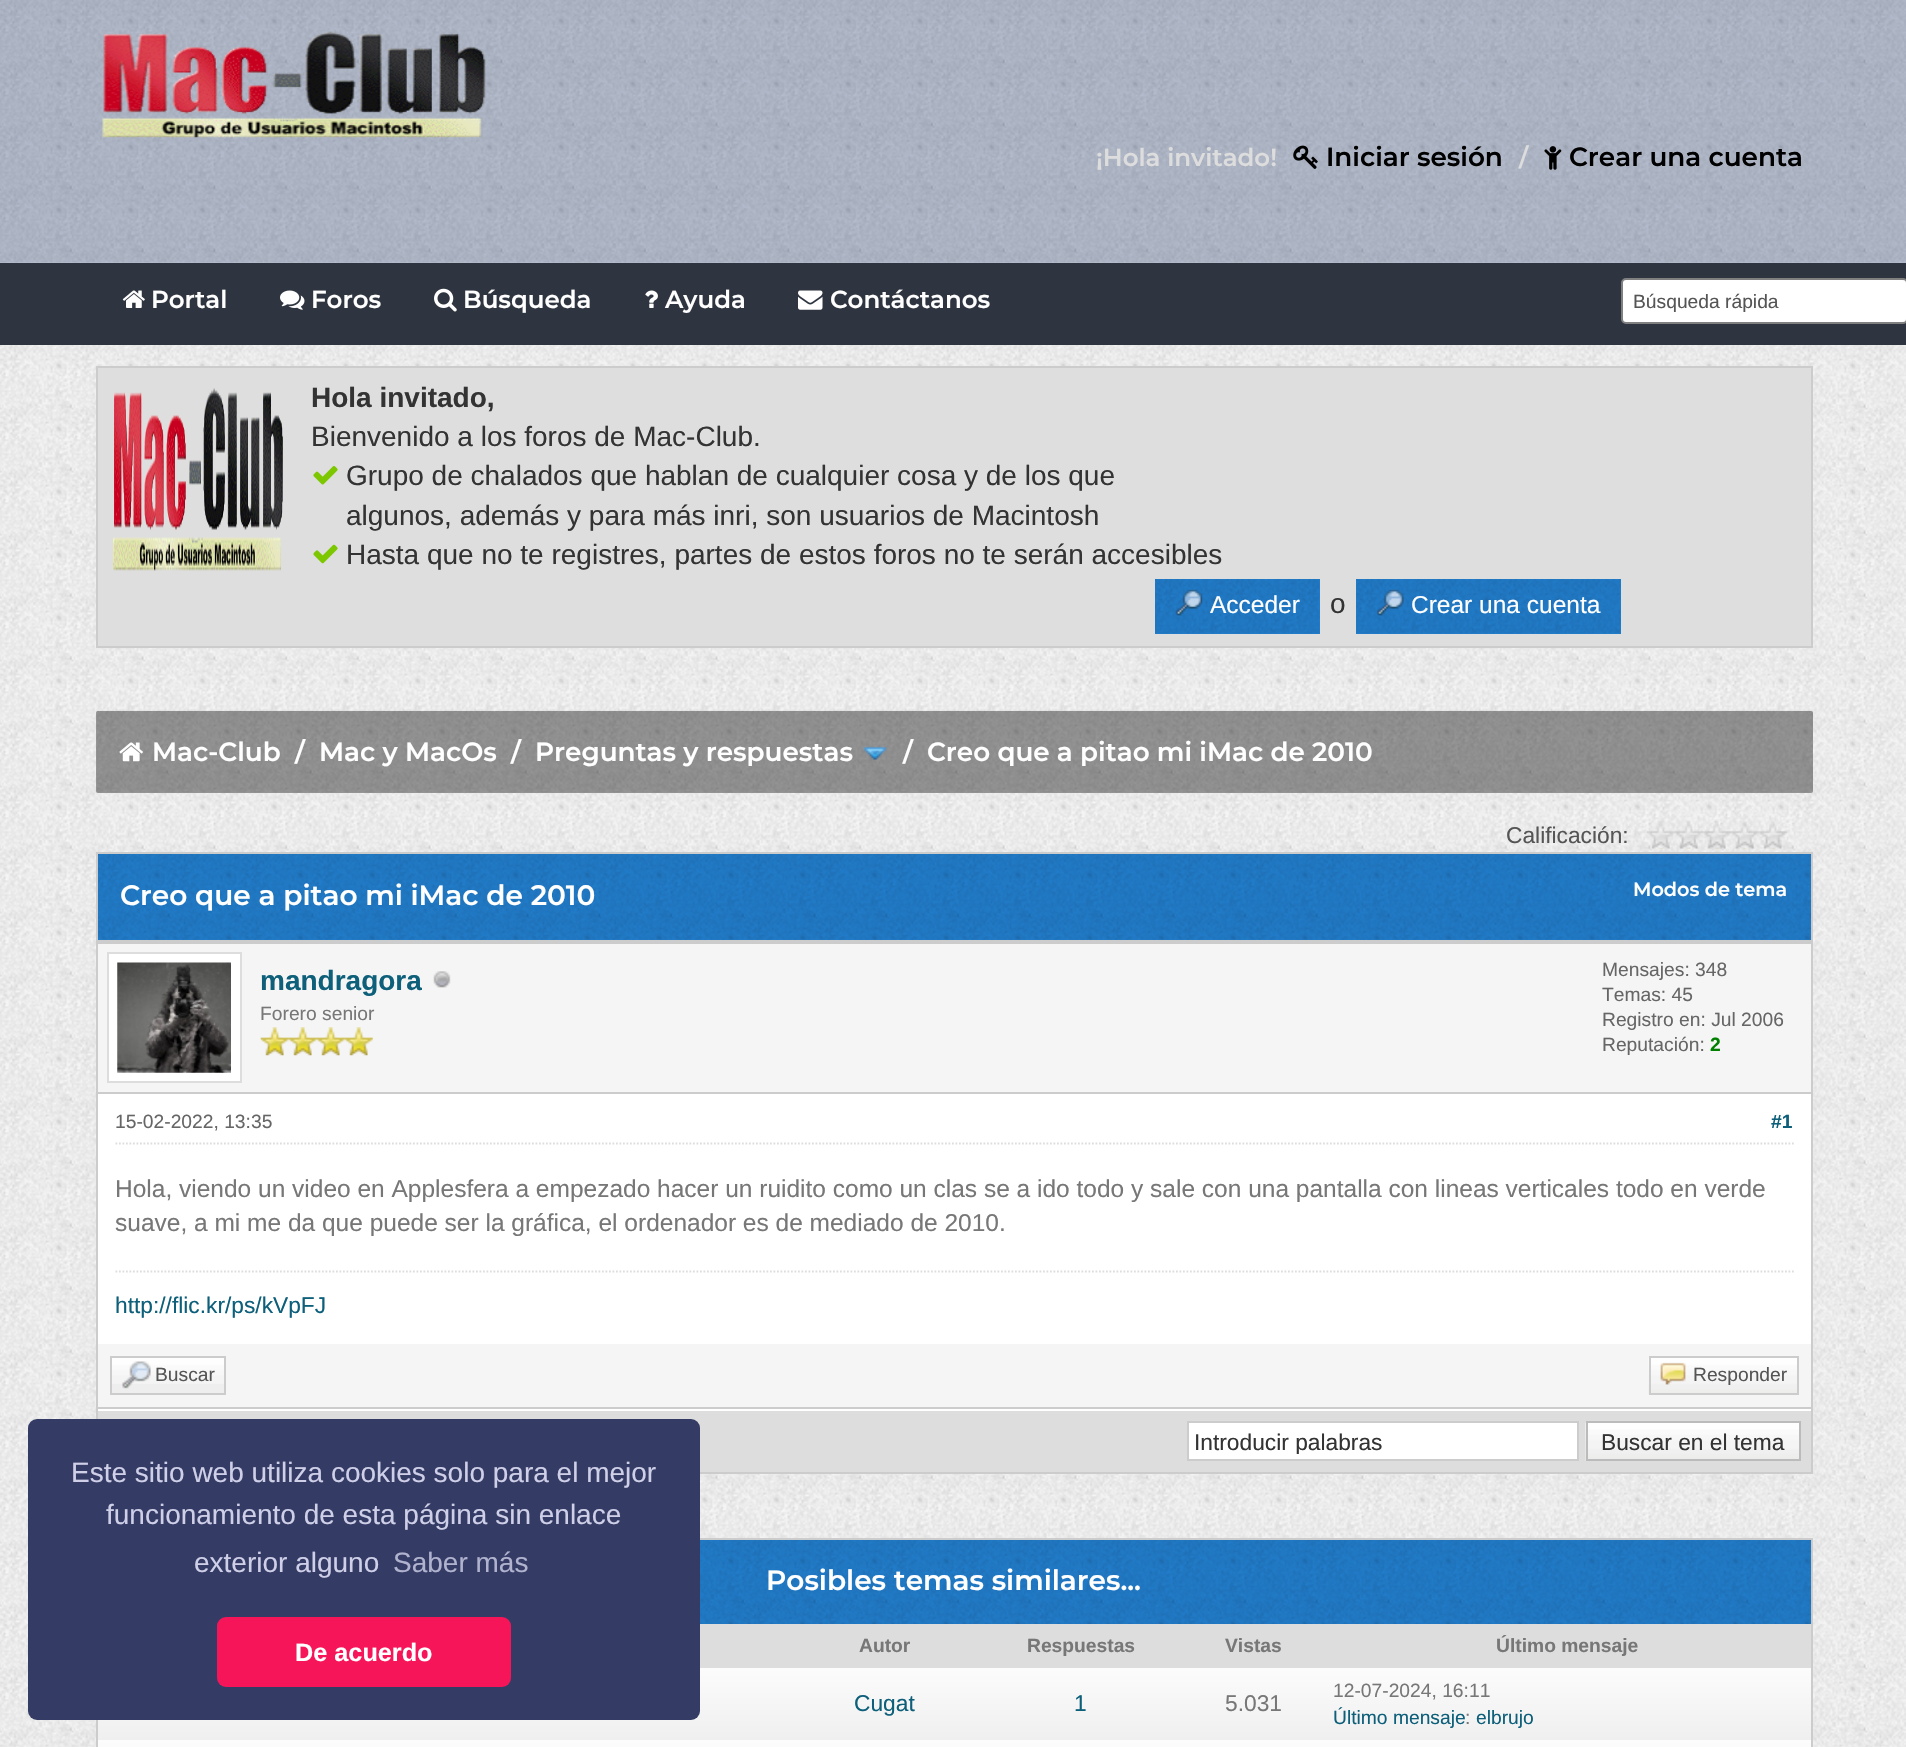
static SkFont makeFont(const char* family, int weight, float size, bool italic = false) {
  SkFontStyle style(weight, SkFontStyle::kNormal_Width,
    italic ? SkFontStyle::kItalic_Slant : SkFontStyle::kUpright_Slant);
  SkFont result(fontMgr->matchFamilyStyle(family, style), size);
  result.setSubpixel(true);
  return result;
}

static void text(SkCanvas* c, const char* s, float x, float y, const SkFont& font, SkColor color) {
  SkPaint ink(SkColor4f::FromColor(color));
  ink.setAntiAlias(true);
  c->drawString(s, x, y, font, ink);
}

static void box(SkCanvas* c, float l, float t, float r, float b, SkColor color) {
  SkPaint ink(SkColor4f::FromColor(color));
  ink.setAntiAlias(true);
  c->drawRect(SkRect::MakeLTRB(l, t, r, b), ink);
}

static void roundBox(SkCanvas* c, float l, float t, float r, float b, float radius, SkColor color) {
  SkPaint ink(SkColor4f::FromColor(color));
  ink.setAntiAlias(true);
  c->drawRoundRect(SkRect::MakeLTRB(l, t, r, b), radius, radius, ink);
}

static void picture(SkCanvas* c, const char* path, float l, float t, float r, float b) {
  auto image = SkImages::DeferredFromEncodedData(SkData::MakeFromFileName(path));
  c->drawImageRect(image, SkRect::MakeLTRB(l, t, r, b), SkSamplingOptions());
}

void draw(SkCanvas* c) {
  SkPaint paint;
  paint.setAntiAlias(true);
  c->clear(0xff2f3540);
  box(c, 0, 0, 1906, 263, 0xffb8c0d1);
  picture(c, "img_01.png", 0, 0, 1906, 263);
  picture(c, "img_02.png", 102, 31, 486, 138);
  SkFont face1 = makeFont("Montserrat", 100, 24.5f);
  text(c, "¡Hola invitado!", 1096, 166, face1, 0xffdddddd);
  picture(c, "img_03.png", 1293, 145, 1318, 169);
  SkFont face2 = makeFont("Montserrat", 100, 26.25f);
  text(c, "Iniciar sesión", 1326, 166, face2, 0xff000000);
  text(c, "/", 1519, 166, face1, 0xffdddddd);
  picture(c, "img_04.png", 1544, 146, 1562, 170);
  text(c, "Crear una cuenta", 1569, 166, face2, 0xff000000);
  picture(c, "img_05.png", 122, 290, 145, 308);
  text(c, "Portal", 151, 308, face1, 0xffffffff);
  picture(c, "img_06.png", 280, 290, 305, 310);
  text(c, "Foros", 311, 308, face1, 0xffffffff);
  picture(c, "img_07.png", 434, 288, 457, 312);
  text(c, "Búsqueda", 463, 308, face1, 0xffffffff);
  picture(c, "img_08.png", 645, 290, 658, 308);
  text(c, "Ayuda", 665, 308, face1, 0xffffffff);
  picture(c, "img_09.png", 798, 290, 823, 310);
  text(c, "Contáctanos", 830, 308, face1, 0xffffffff);
  paint.setColor(0xffffffff);
  c->drawRoundRect(SkRect::MakeLTRB(1622, 279, 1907, 323), 4, 4, paint);
  paint.setStyle(SkPaint::kStroke_Style);
  paint.setStrokeWidth(2);
  paint.setColor(0xff808080);
  c->drawRoundRect(SkRect::MakeLTRB(1622, 279, 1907, 323), 4, 4, paint);
  SkFont face3 = makeFont("Liberation Sans", 400, 19.25f);
  text(c, "Búsqueda rápida", 1633, 308, face3, 0xff555555);
  box(c, 0, 345, 1906, 1747, 0xfffcfcfc);
  picture(c, "img_10.png", 0, 345, 1906, 1747);
  paint.setStyle(SkPaint::kFill_Style);
  paint.setColor(0xffdedede);
  c->drawRect(SkRect::MakeLTRB(97, 367, 1812, 647), paint);
  paint.setStyle(SkPaint::kStroke_Style);
  paint.setColor(0xffcccccc);
  c->drawRect(SkRect::MakeLTRB(97, 367, 1812, 647), paint);
  picture(c, "img_11.png", 113, 388, 283, 571);
  SkFont face4 = makeFont("Liberation Sans", 700, 28);
  text(c, "Hola invitado,", 311, 407, face4, 0xff333333);
  SkFont face5 = makeFont("Liberation Sans", 400, 28);
  text(c, "Bienvenido a los foros de Mac-Club.", 311, 446, face5, 0xff333333);
  picture(c, "img_12.png", 313, 466, 338, 485);
  text(c, "Grupo de chalados que hablan de cualquier cosa y de los que", 346, 485, face5, 0xff333333);
  text(c, "algunos, además y para más inri, son usuarios de Macintosh", 346, 525, face5, 0xff333333);
  picture(c, "img_13.png", 313, 544, 338, 564);
  text(c, "Hasta que no te registres, partes de estos foros no te serán accesibles", 346, 564, face5, 0xff333333);
  box(c, 1155, 579, 1320, 634, 0xff227fcf);
  picture(c, "img_14.png", 1155, 579, 1320, 634);
  picture(c, "img_15.png", 1175, 589, 1203, 616);
  SkFont face6 = makeFont("Liberation Sans", 400, 24.5f);
  text(c, "Acceder", 1210, 613, face6, 0xffffffff);
  text(c, "o", 1330, 613, face5, 0xff333333);
  box(c, 1356, 579, 1621, 634, 0xff227fcf);
  picture(c, "img_16.png", 1356, 579, 1621, 634);
  picture(c, "img_17.png", 1376, 589, 1404, 616);
  text(c, "Crear una cuenta", 1411, 613, face6, 0xffffffff);
  roundBox(c, 96, 711, 1813, 793, 2, 0xff999999);
  picture(c, "img_18.png", 96, 710, 1813, 793);
  picture(c, "img_19.png", 119, 742, 143, 762);
  text(c, "Mac-Club", 152, 761, face2, 0xffffffff);
  text(c, "/", 295, 761, face2, 0xffffffff);
  text(c, "Mac y MacOs", 319, 761, face2, 0xffffffff);
  text(c, "/", 511, 761, face2, 0xffffffff);
  text(c, "Preguntas y respuestas", 535, 761, face2, 0xffffffff);
  picture(c, "img_20.png", 862, 746, 888, 760);
  text(c, "/", 903, 761, face2, 0xffffffff);
  text(c, "Creo que a pitao mi iMac de 2010", 927, 761, face2, 0xffffffff);
  SkFont face7 = makeFont("Liberation Sans", 400, 22.75f);
  text(c, "Calificación:", 1506, 843, face7, 0xff555555);
  picture(c, "img_21.png", 1646, 821, 1787, 849);
  box(c, 98, 1094, 1811, 1344, 0xffffffff);
  c->drawRect(SkRect::MakeLTRB(97, 853, 1812, 1473), paint);
  box(c, 98, 854, 1811, 940, 0xff227fcf);
  picture(c, "img_22.png", 98, 854, 1812, 940);
  SkFont face8 = makeFont("Montserrat", 100, 28);
  text(c, "Creo que a pitao mi iMac de 2010", 120, 905, face8, 0xffffffff);
  SkFont face9 = makeFont("Montserrat", 100, 19.25f);
  text(c, "Modos de tema", 1633, 896, face9, 0xffffffff);
  box(c, 98, 944, 1811, 1092, 0xfff5f5f5);
  box(c, 98, 940, 1811, 944, 0xffcccccc);
  box(c, 98, 1092, 1811, 1094, 0xffcccccc);
  paint.setStyle(SkPaint::kFill_Style);
  paint.setColor(0xffffffff);
  c->drawRect(SkRect::MakeLTRB(108, 953, 241, 1082), paint);
  paint.setStyle(SkPaint::kStroke_Style);
  paint.setColor(0xffdddddd);
  c->drawRect(SkRect::MakeLTRB(108, 953, 241, 1082), paint);
  picture(c, "img_23.png", 117, 962, 231, 1073);
  text(c, "mandragora", 260, 990, face4, 0xff0d5f7a);
  picture(c, "img_24.png", 433, 971, 451, 988);
  text(c, "Forero senior", 260, 1020, face3, 0xff777777);
  picture(c, "img_25.png", 260, 1027, 289, 1056);
  picture(c, "img_26.png", 288, 1027, 317, 1056);
  picture(c, "img_26.png", 316, 1027, 345, 1056);
  picture(c, "img_26.png", 344, 1027, 373, 1056);
  text(c, "Mensajes: 348", 1602, 976, face3, 0xff666666);
  text(c, "Temas: 45", 1602, 1001, face3, 0xff666666);
  text(c, "Registro en: Jul 2006", 1602, 1026, face3, 0xff666666);
  text(c, "Reputación:", 1602, 1051, face3, 0xff666666);
  SkFont face10 = makeFont("Liberation Sans", 700, 19.25f);
  text(c, "2", 1710, 1051, face10, 0xff008000);
  paint.setStrokeWidth(1.8f);
  paint.setPathEffect(SkDashPathEffect::Make({{1.75f, 1.75f}}, 0));
  c->drawPath(SkPathBuilder().moveTo(115.5f, 1143.5f).lineTo(1794, 1143.5f).detach(), paint);
  paint.setPathEffect(nullptr);
  text(c, "15-02-2022, 13:35", 115, 1128, face3, 0xff666666);
  text(c, "#1", 1771, 1128, face10, 0xff0d5f7a);
  text(c, "Hola, viendo un video en Applesfera a empezado hacer un ruidito como un clas se a ido todo y sale con una pantalla con lineas verticales todo en verde", 115, 1197, face6, 0xff777777);
  text(c, "suave, a mi me da que puede ser la gráfica, el ordenador es de mediado de 2010.", 115, 1231, face6, 0xff777777);
  paint.setPathEffect(SkDashPathEffect::Make({{1.75f, 1.75f}}, 0));
  c->drawPath(SkPathBuilder().moveTo(115.5f, 1271.5f).lineTo(1794, 1271.5f).detach(), paint);
  paint.setPathEffect(nullptr);
  text(c, "http://flic.kr/ps/kVpFJ", 115, 1313, face7, 0xff0d5f7a);
  box(c, 98, 1344, 1811, 1407, 0xfff5f5f5);
  box(c, 98, 1407, 1811, 1409, 0xffcccccc);
  box(c, 112, 1384, 224, 1393, 0xffeeeeee);
  picture(c, "img_27.png", 112, 1358, 224, 1384);
  paint.setStrokeWidth(2);
  paint.setColor(0xffcccccc);
  c->drawRect(SkRect::MakeLTRB(111, 1357, 225, 1394), paint);
  picture(c, "img_28.png", 122, 1361, 151, 1389);
  text(c, "Buscar", 155, 1381, face3, 0xff555555);
  picture(c, "img_29.png", 1648, 1358, 1797, 1394);
  c->drawRect(SkRect::MakeLTRB(1650, 1357, 1798, 1394), paint);
  picture(c, "img_30.png", 1660, 1362, 1686, 1385);
  text(c, "Responder", 1693, 1381, face3, 0xff555555);
  box(c, 98, 1411, 1811, 1472, 0xffdddddd);
  box(c, 98, 1409, 1811, 1411, 0xffffffff);
  paint.setStyle(SkPaint::kFill_Style);
  paint.setColor(0xffffffff);
  c->drawRect(SkRect::MakeLTRB(1188, 1422, 1578, 1460), paint);
  paint.setStyle(SkPaint::kStroke_Style);
  paint.setColor(0xffcccccc);
  c->drawRect(SkRect::MakeLTRB(1188, 1422, 1578, 1460), paint);
  c->save();
  c->clipRect(SkRect::MakeLTRB(1194, 1428, 1572, 1454));
  text(c, "Introducir palabras", 1194, 1450, face7, 0xff333333);
  c->restore();
  picture(c, "img_31.png", 1585, 1422, 1799, 1461);
  paint.setColor(0xffbbbbbb);
  c->drawRect(SkRect::MakeLTRB(1587, 1422, 1800, 1460), paint);
  text(c, "Buscar en el tema", 1601, 1450, face7, 0xff333333);
  paint.setColor(0xffcccccc);
  c->drawRect(SkRect::MakeLTRB(97, 1539, 1812, 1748), paint);
  box(c, 700, 1540, 1811, 1624, 0xff227fcf);
  picture(c, "img_32.png", 700, 1540, 1812, 1624);
  text(c, "Posibles temas similares...", 766, 1590, face8, 0xffffffff);
  box(c, 700, 1624, 1811, 1668, 0xffdddddd);
  text(c, "Autor", 859, 1652, face10, 0xff777777);
  text(c, "Respuestas", 1027, 1652, face10, 0xff777777);
  text(c, "Vistas", 1225, 1652, face10, 0xff777777);
  text(c, "Último mensaje", 1496, 1652, face10, 0xff777777);
  paint.setStyle(SkPaint::kFill_Style);
  {
    const SkColor colors[] = {0xfffcfcfc, 0xffefefef};
    const float stops[] = {0, 1};
    const SkPoint ends[] = {{467, 1668}, {467, 1740}};
    paint.setShader(SkGradientShader::MakeLinear(ends, colors, stops, 2, SkTileMode::kClamp));
    paint.setAlpha(255);
  }
  c->drawRect(SkRect::MakeLTRB(144, 1668, 791, 1740), paint);
  {
    const SkColor colors[] = {0xfffcfcfc, 0xffefefef};
    const float stops[] = {0, 1};
    const SkPoint ends[] = {{885, 1668}, {885, 1740}};
    paint.setShader(SkGradientShader::MakeLinear(ends, colors, stops, 2, SkTileMode::kClamp));
    paint.setAlpha(255);
  }
  c->drawRect(SkRect::MakeLTRB(791, 1668, 978, 1740), paint);
  text(c, "Cugat", 854, 1711, face7, 0xff0d5f7a);
  {
    const SkColor colors[] = {0xfffcfcfc, 0xffefefef};
    const float stops[] = {0, 1};
    const SkPoint ends[] = {{1081, 1668}, {1081, 1740}};
    paint.setShader(SkGradientShader::MakeLinear(ends, colors, stops, 2, SkTileMode::kClamp));
    paint.setAlpha(255);
  }
  c->drawRect(SkRect::MakeLTRB(978, 1668, 1183, 1740), paint);
  text(c, "1", 1074, 1711, face7, 0xff0d5f7a);
  {
    const SkColor colors[] = {0xfffcfcfc, 0xffefefef};
    const float stops[] = {0, 1};
    const SkPoint ends[] = {{1253, 1668}, {1253, 1740}};
    paint.setShader(SkGradientShader::MakeLinear(ends, colors, stops, 2, SkTileMode::kClamp));
    paint.setAlpha(255);
  }
  c->drawRect(SkRect::MakeLTRB(1183, 1668, 1323, 1740), paint);
  text(c, "5.031", 1225, 1711, face7, 0xff777777);
  {
    const SkColor colors[] = {0xfffcfcfc, 0xffefefef};
    const float stops[] = {0, 1};
    const SkPoint ends[] = {{1567, 1668}, {1567, 1740}};
    paint.setShader(SkGradientShader::MakeLinear(ends, colors, stops, 2, SkTileMode::kClamp));
    paint.setAlpha(255);
  }
  c->drawRect(SkRect::MakeLTRB(1323, 1668, 1811, 1740), paint);
  text(c, "12-07-2024, 16:11", 1333, 1697, face3, 0xff777777);
  text(c, "Último mensaje", 1333, 1724, face3, 0xff0d5f7a);
  text(c, ":", 1465, 1724, face3, 0xff777777);
  text(c, "elbrujo", 1476, 1724, face3, 0xff0d5f7a);
  {
    const SkColor colors[] = {0xfffcfcfc, 0xffefefef};
    const float stops[] = {0, 1};
    const SkPoint ends[] = {{121, 1668}, {121, 1740}};
    paint.setShader(SkGradientShader::MakeLinear(ends, colors, stops, 2, SkTileMode::kClamp));
    paint.setAlpha(255);
  }
  c->drawRect(SkRect::MakeLTRB(98, 1720, 144, 1740), paint);
  {
    const SkColor colors[] = {0xfffcfcfc, 0xffefefef};
    const float stops[] = {0, 1};
    const SkPoint ends[] = {{121, 1740}, {121, 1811}};
    paint.setShader(SkGradientShader::MakeLinear(ends, colors, stops, 2, SkTileMode::kClamp));
    paint.setAlpha(255);
  }
  c->drawRect(SkRect::MakeLTRB(98, 1740, 144, 1747), paint);
  {
    const SkColor colors[] = {0xfffcfcfc, 0xffefefef};
    const float stops[] = {0, 1};
    const SkPoint ends[] = {{467, 1740}, {467, 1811}};
    paint.setShader(SkGradientShader::MakeLinear(ends, colors, stops, 2, SkTileMode::kClamp));
    paint.setAlpha(255);
  }
  c->drawRect(SkRect::MakeLTRB(144, 1740, 791, 1747), paint);
  {
    const SkColor colors[] = {0xfffcfcfc, 0xffefefef};
    const float stops[] = {0, 1};
    const SkPoint ends[] = {{885, 1740}, {885, 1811}};
    paint.setShader(SkGradientShader::MakeLinear(ends, colors, stops, 2, SkTileMode::kClamp));
    paint.setAlpha(255);
  }
  c->drawRect(SkRect::MakeLTRB(791, 1740, 978, 1747), paint);
  {
    const SkColor colors[] = {0xfffcfcfc, 0xffefefef};
    const float stops[] = {0, 1};
    const SkPoint ends[] = {{1081, 1740}, {1081, 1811}};
    paint.setShader(SkGradientShader::MakeLinear(ends, colors, stops, 2, SkTileMode::kClamp));
    paint.setAlpha(255);
  }
  c->drawRect(SkRect::MakeLTRB(978, 1740, 1183, 1747), paint);
  {
    const SkColor colors[] = {0xfffcfcfc, 0xffefefef};
    const float stops[] = {0, 1};
    const SkPoint ends[] = {{1253, 1740}, {1253, 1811}};
    paint.setShader(SkGradientShader::MakeLinear(ends, colors, stops, 2, SkTileMode::kClamp));
    paint.setAlpha(255);
  }
  c->drawRect(SkRect::MakeLTRB(1183, 1740, 1323, 1747), paint);
  {
    const SkColor colors[] = {0xfffcfcfc, 0xffefefef};
    const float stops[] = {0, 1};
    const SkPoint ends[] = {{1567, 1740}, {1567, 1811}};
    paint.setShader(SkGradientShader::MakeLinear(ends, colors, stops, 2, SkTileMode::kClamp));
    paint.setAlpha(255);
  }
  c->drawRect(SkRect::MakeLTRB(1323, 1740, 1811, 1747), paint);
  roundBox(c, 28, 1419, 700, 1720, 9, 0xff343c66);
  text(c, "Este sitio web utiliza cookies solo para el mejor", 71, 1482, face5, 0xffcfcfe8);
  text(c, "funcionamiento de esta página sin enlace", 106, 1524, face5, 0xffcfcfe8);
  text(c, "exterior alguno", 194, 1572, face5, 0xffcfcfe8);
  text(c, "Saber más", 393, 1572, face5, 0xffb0b2ce);
  roundBox(c, 217, 1617, 511, 1687, 9, 0xfff71559);
  SkFont face11 = makeFont("Liberation Sans", 700, 25.25f);
  text(c, "De acuerdo", 295, 1661, face11, 0xffffffff);
}
